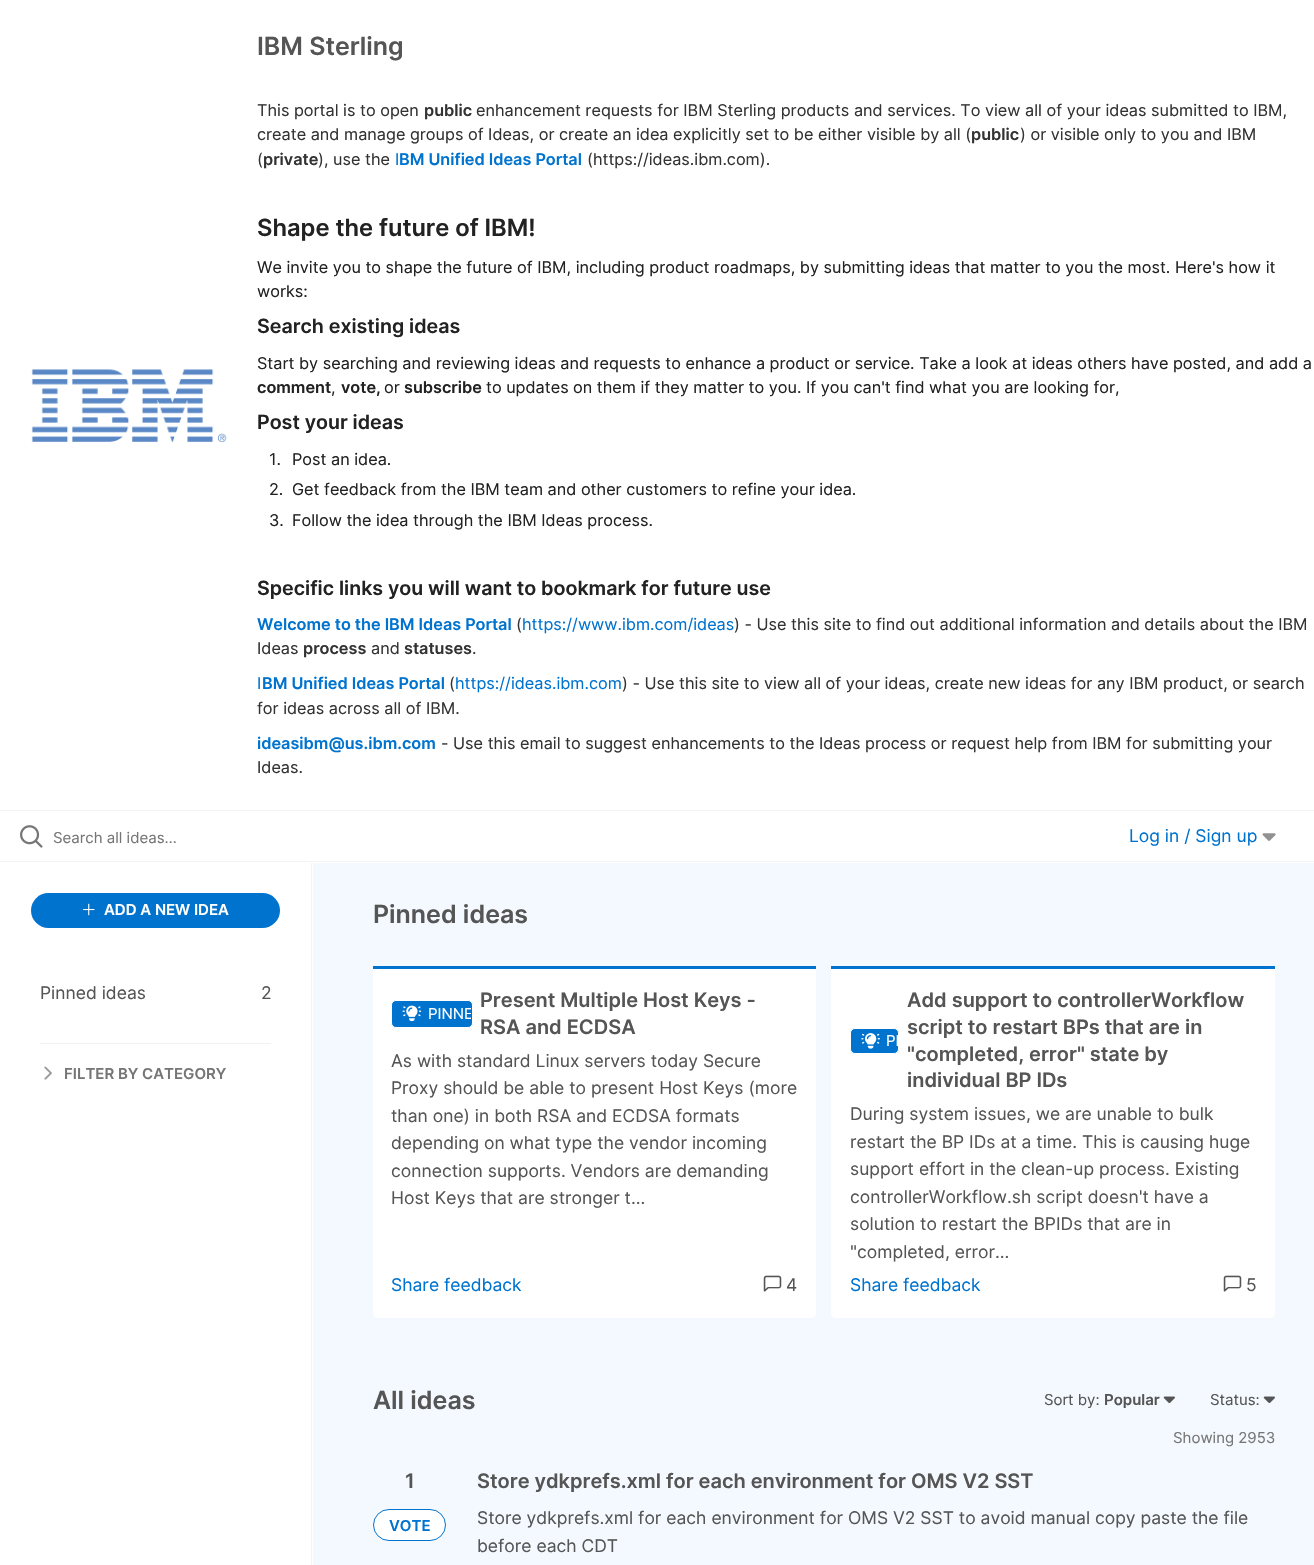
static SkFont makeFont(const char* family, int weight, float size, bool italic = false) {
  SkFontStyle style(weight, SkFontStyle::kNormal_Width,
    italic ? SkFontStyle::kItalic_Slant : SkFontStyle::kUpright_Slant);
  SkFont result(fontMgr->matchFamilyStyle(family, style), size);
  result.setSubpixel(true);
  return result;
}

static void text(SkCanvas* c, const char* s, float x, float y, const SkFont& font, SkColor color) {
  SkPaint ink(SkColor4f::FromColor(color));
  ink.setAntiAlias(true);
  c->drawString(s, x, y, font, ink);
}

static void box(SkCanvas* c, float l, float t, float r, float b, SkColor color) {
  SkPaint ink(SkColor4f::FromColor(color));
  ink.setAntiAlias(true);
  c->drawRect(SkRect::MakeLTRB(l, t, r, b), ink);
}

static void roundBox(SkCanvas* c, float l, float t, float r, float b, float radius, SkColor color) {
  SkPaint ink(SkColor4f::FromColor(color));
  ink.setAntiAlias(true);
  c->drawRoundRect(SkRect::MakeLTRB(l, t, r, b), radius, radius, ink);
}

static void picture(SkCanvas* c, const char* path, float l, float t, float r, float b) {
  auto image = SkImages::DeferredFromEncodedData(SkData::MakeFromFileName(path));
  c->drawImageRect(image, SkRect::MakeLTRB(l, t, r, b), SkSamplingOptions());
}

void draw(SkCanvas* c) {
  SkPaint paint;
  paint.setAntiAlias(true);
  c->clear(0xfff3f9fe);
  box(c, 0, 0, 1314, 810, 0xffffffff);
  box(c, 0, 810, 1314, 811, 0xfff4f4f4);
  picture(c, "img_01.png", 31, 369, 227, 443);
  SkFont face1 = makeFont("Inter", 600, 25);
  text(c, "IBM Sterling", 257, 55, face1, 0xff555555);
  SkFont face2 = makeFont("Inter", 400, 16.25f);
  text(c, "This portal is to open", 257, 116, face2, 0xff333333);
  SkFont face3 = makeFont("Inter", 600, 16.25f);
  text(c, "public", 424, 116, face3, 0xff333333);
  text(c, "enhancement requests for IBM Sterling products and services. To view all of your ideas submitted to IBM,", 476, 116, face2, 0xff333333);
  text(c, "create and manage groups of Ideas, or create an idea explicitly set to be either visible by all (", 257, 140, face2, 0xff333333);
  text(c, "public", 971, 140, face3, 0xff333333);
  text(c, ") or visible only to you and IBM", 1020, 140, face2, 0xff333333);
  text(c, "(", 257, 165, face2, 0xff333333);
  text(c, "private", 263, 165, face3, 0xff333333);
  text(c, "), use the", 318, 165, face2, 0xff333333);
  text(c, "I", 395, 165, face2, 0xff0073cf);
  text(c, "BM Unified Ideas Portal", 399, 165, face3, 0xff0073cf);
  text(c, "(https://ideas.ibm.com).", 587, 165, face2, 0xff333333);
  SkFont face4 = makeFont("Inter", 600, 23.75f);
  text(c, "Shape the future of IBM!", 257, 236, face4, 0xff222222);
  text(c, "We invite you to shape the future of IBM, including product roadmaps, by submitting ideas that matter to you the most. Here's how it", 257, 273, face2, 0xff222222);
  text(c, "works:", 257, 297, face2, 0xff222222);
  SkFont face5 = makeFont("Inter", 600, 19.65f);
  text(c, "Search existing ideas", 257, 333, face5, 0xff222222);
  text(c, "Start by searching and reviewing ideas and requests to enhance a product or service. Take a look at ideas others have posted, and add a", 257, 369, face2, 0xff222222);
  text(c, "comment", 257, 393, face3, 0xff222222);
  text(c, ",", 331, 393, face2, 0xff222222);
  text(c, "vote,", 341, 393, face3, 0xff222222);
  text(c, "or", 384, 393, face2, 0xff222222);
  text(c, "subscribe", 404, 393, face3, 0xff222222);
  text(c, "to updates", 486, 393, face2, 0xff222222);
  text(c, "on them if they matter to you. If you can't find what you are looking for,", 573, 393, face2, 0xff222222);
  text(c, "Post your ideas", 257, 429, face5, 0xff222222);
  text(c, "1.", 269, 465, face2, 0xff222222);
  text(c, "Post an idea.", 292, 465, face2, 0xff222222);
  text(c, "2.", 269, 495, face2, 0xff222222);
  text(c, "Get feedback from the IBM team and other customers to refine your idea.", 292, 495, face2, 0xff222222);
  text(c, "3.", 269, 526, face2, 0xff222222);
  text(c, "Follow the idea through the IBM Ideas process.", 292, 526, face2, 0xff222222);
  text(c, "Specific links you will want to bookmark for future use", 257, 595, face5, 0xff222222);
  text(c, "Welcome to the IBM Ideas Portal", 257, 630, face3, 0xff0073cf);
  text(c, "(", 516, 630, face2, 0xff333333);
  text(c, "https://www.ibm.com/ideas", 522, 630, face2, 0xff0073cf);
  text(c, ") - Use this site to find out additional information and details about the IBM", 734, 630, face2, 0xff333333);
  text(c, "Ideas", 257, 654, face2, 0xff333333);
  text(c, "process", 303, 654, face3, 0xff333333);
  text(c, "and", 371, 654, face2, 0xff333333);
  text(c, "statuses", 404, 654, face3, 0xff333333);
  text(c, ".", 472, 654, face2, 0xff333333);
  text(c, "I", 257, 689, face2, 0xff0073cf);
  text(c, "BM Unified Ideas Portal", 262, 689, face3, 0xff0073cf);
  text(c, "(", 449, 689, face2, 0xff333333);
  text(c, "https://ideas.ibm.com", 455, 689, face2, 0xff0073cf);
  text(c, ") - Use this site to view all of your ideas, create new ideas for any IBM product, or search", 622, 689, face2, 0xff333333);
  text(c, "for ideas across all of IBM.", 257, 714, face2, 0xff333333);
  text(c, "ideasibm@us.ibm.com", 257, 749, face3, 0xff0073cf);
  text(c, "- Use this email to suggest enhancements to the Ideas process or request help from IBM for submitting your", 441, 749, face2, 0xff333333);
  text(c, "Ideas.", 257, 773, face2, 0xff333333);
  box(c, 0, 811, 1314, 863, 0xffffffff);
  box(c, 0, 861, 1314, 862, 0xfff4f4f4);
  picture(c, "img_02.png", 20, 825, 43, 848);
  SkFont face6 = makeFont("Inter", 400, 15);
  text(c, "Search all ideas…", 53, 843, face6, 0xff767676);
  SkFont face7 = makeFont("Inter", 400, 17.5f);
  text(c, "Log in / Sign up", 1129, 842, face7, 0xff0073cf);
  picture(c, "img_03.png", 1262, 833, 1276, 841);
  box(c, 0, 863, 313, 1565, 0xffffffff);
  box(c, 311, 863, 312, 1565, 0xfff4f4f4);
  roundBox(c, 31, 893, 280, 928, 17.5f, 0xff0073cf);
  picture(c, "img_04.png", 82, 903, 95, 916);
  SkFont face8 = makeFont("Inter", 600, 15);
  text(c, "ADD A NEW IDEA", 104, 915, face8, 0xffffffff);
  text(c, "Pinned ideas", 40, 999, face7, 0xff555555);
  text(c, "2", 261, 999, face7, 0xff555555);
  box(c, 40, 1043, 271, 1044, 0xfff1f1f1);
  picture(c, "img_05.png", 44, 1066, 52, 1080);
  text(c, "FILTER BY CATEGORY", 64, 1079, face8, 0xff767676);
  text(c, "Pinned ideas", 373, 923, face1, 0xff555555);
  paint.setColor(0xffffffff);
  c->drawPath(SkPathBuilder().moveTo(373, 966).lineTo(816, 966).lineTo(816, 1313).cubicTo(816, 1316, 814, 1318, 811, 1318).lineTo(378, 1318).cubicTo(375, 1318, 373, 1316, 373, 1313).close().detach(), paint);
  box(c, 373, 966, 816, 969, 0xff0073cf);
  paint.setColor(0xff0073cf);
  c->drawRoundRect(SkRect::MakeLTRB(391.5f, 1000.5f, 472.5f, 1027.5f), 4.5f, 4.5f, paint);
  paint.setStyle(SkPaint::kStroke_Style);
  paint.setStrokeWidth(1);
  paint.setColor(0xffffffff);
  c->drawRoundRect(SkRect::MakeLTRB(391.5f, 1000.5f, 472.5f, 1027.5f), 4.5f, 4.5f, paint);
  picture(c, "img_06.png", 402, 1005, 422, 1022);
  c->save();
  c->clipPath(SkPathBuilder().moveTo(397, 1001).lineTo(467, 1001).cubicTo(469, 1001, 471, 1003, 471, 1005).lineTo(471, 1022).cubicTo(471, 1024, 469, 1026, 467, 1026).lineTo(397, 1026).cubicTo(395, 1026, 393, 1024, 393, 1022).lineTo(393, 1005).cubicTo(393, 1003, 395, 1001, 397, 1001).close().detach(), true);
  text(c, "PINNE", 428, 1019, face6, 0xffffffff);
  c->restore();
  SkFont face9 = makeFont("Inter", 600, 20);
  text(c, "Present Multiple Host Keys -", 480, 1007, face9, 0xff555555);
  text(c, "RSA and ECDSA", 480, 1034, face9, 0xff555555);
  text(c, "As with standard Linux servers today Secure", 391, 1067, face7, 0xff555555);
  text(c, "Proxy should be able to present Host Keys (more", 391, 1094, face7, 0xff555555);
  text(c, "than one) in both RSA and ECDSA formats", 391, 1122, face7, 0xff555555);
  text(c, "depending on what type the vendor incoming", 391, 1149, face7, 0xff555555);
  text(c, "connection supports. Vendors are demanding", 391, 1177, face7, 0xff555555);
  text(c, "Host Keys that are stronger t...", 391, 1204, face7, 0xff555555);
  text(c, "Share feedback", 391, 1291, face7, 0xff0073cf);
  picture(c, "img_07.png", 763, 1275, 782, 1292);
  text(c, "4", 786, 1291, face7, 0xff555555);
  paint.setStyle(SkPaint::kFill_Style);
  c->drawPath(SkPathBuilder().moveTo(831, 966).lineTo(1275, 966).lineTo(1275, 1313).cubicTo(1275, 1316, 1273, 1318, 1270, 1318).lineTo(836, 1318).cubicTo(833, 1318, 831, 1316, 831, 1313).close().detach(), paint);
  box(c, 831, 966, 1275, 969, 0xff0073cf);
  paint.setColor(0xff0073cf);
  c->drawRoundRect(SkRect::MakeLTRB(850.5f, 1028.5f, 898.5f, 1053.5f), 4.5f, 4.5f, paint);
  paint.setStyle(SkPaint::kStroke_Style);
  paint.setColor(0xffffffff);
  c->drawRoundRect(SkRect::MakeLTRB(850.5f, 1028.5f, 898.5f, 1053.5f), 4.5f, 4.5f, paint);
  picture(c, "img_08.png", 861, 1033, 880, 1049);
  c->save();
  c->clipPath(SkPathBuilder().moveTo(855, 1029).lineTo(894, 1029).cubicTo(896, 1029, 898, 1031, 898, 1033).lineTo(898, 1049).cubicTo(898, 1051, 896, 1053, 894, 1053).lineTo(855, 1053).cubicTo(853, 1053, 851, 1051, 851, 1049).lineTo(851, 1033).cubicTo(851, 1031, 853, 1029, 855, 1029).close().detach(), true);
  text(c, "PI", 886, 1046, face6, 0xffffffff);
  c->restore();
  text(c, "Add support to controllerWorkflow", 907, 1007, face9, 0xff555555);
  text(c, "script to restart BPs that are in", 907, 1034, face9, 0xff555555);
  text(c, "\"completed, error\" state by", 907, 1061, face9, 0xff555555);
  text(c, "individual BP IDs", 907, 1087, face9, 0xff555555);
  text(c, "During system issues, we are unable to bulk", 850, 1120, face7, 0xff555555);
  text(c, "restart the BP IDs at a time. This is causing huge", 850, 1148, face7, 0xff555555);
  text(c, "support effort in the clean-up process. Existing", 850, 1175, face7, 0xff555555);
  text(c, "controllerWorkflow.sh script doesn't have a", 850, 1203, face7, 0xff555555);
  text(c, "solution to restart the BPIDs that are in", 850, 1230, face7, 0xff555555);
  text(c, "\"completed, error...", 850, 1258, face7, 0xff555555);
  text(c, "Share feedback", 850, 1291, face7, 0xff0073cf);
  picture(c, "img_07.png", 1223, 1275, 1242, 1292);
  text(c, "5", 1246, 1291, face7, 0xff555555);
  text(c, "All ideas", 373, 1409, face1, 0xff555555);
  text(c, "Sort by:", 1044, 1405, face6, 0xff555555);
  text(c, "Popular", 1104, 1405, face8, 0xff555555);
  picture(c, "img_09.png", 1163, 1396, 1175, 1404);
  text(c, "Status:", 1210, 1405, face6, 0xff555555);
  picture(c, "img_09.png", 1263, 1396, 1275, 1404);
  text(c, "Showing 2953", 1173, 1443, face6, 0xff767676);
  text(c, "1", 405, 1488, face9, 0xff555555);
  paint.setStyle(SkPaint::kFill_Style);
  c->drawRoundRect(SkRect::MakeLTRB(373.5f, 1509.5f, 445.5f, 1540.5f), 15.5f, 15.5f, paint);
  paint.setStyle(SkPaint::kStroke_Style);
  paint.setColor(0xff0073cf);
  c->drawRoundRect(SkRect::MakeLTRB(373.5f, 1509.5f, 445.5f, 1540.5f), 15.5f, 15.5f, paint);
  text(c, "VOTE", 389, 1531, face8, 0xff0073cf);
  text(c, "Store ydkprefs.xml for each environment for OMS V2 SST", 477, 1488, face9, 0xff555555);
  text(c, "Store ydkprefs.xml for each environment for OMS V2 SST to avoid manual copy paste the file", 477, 1524, face7, 0xff555555);
  text(c, "before each CDT", 477, 1552, face7, 0xff555555);
}
